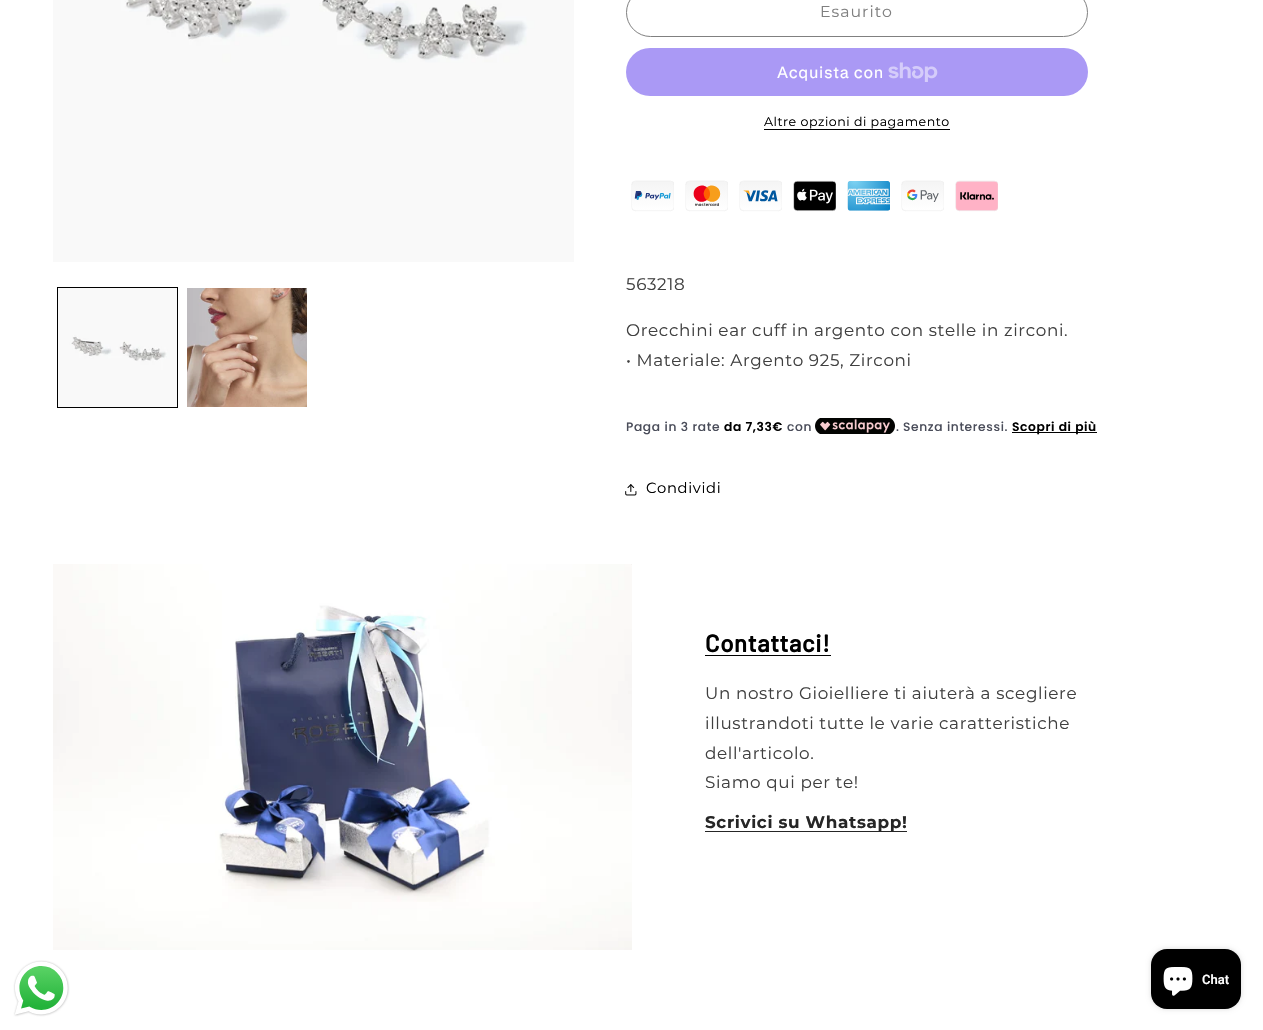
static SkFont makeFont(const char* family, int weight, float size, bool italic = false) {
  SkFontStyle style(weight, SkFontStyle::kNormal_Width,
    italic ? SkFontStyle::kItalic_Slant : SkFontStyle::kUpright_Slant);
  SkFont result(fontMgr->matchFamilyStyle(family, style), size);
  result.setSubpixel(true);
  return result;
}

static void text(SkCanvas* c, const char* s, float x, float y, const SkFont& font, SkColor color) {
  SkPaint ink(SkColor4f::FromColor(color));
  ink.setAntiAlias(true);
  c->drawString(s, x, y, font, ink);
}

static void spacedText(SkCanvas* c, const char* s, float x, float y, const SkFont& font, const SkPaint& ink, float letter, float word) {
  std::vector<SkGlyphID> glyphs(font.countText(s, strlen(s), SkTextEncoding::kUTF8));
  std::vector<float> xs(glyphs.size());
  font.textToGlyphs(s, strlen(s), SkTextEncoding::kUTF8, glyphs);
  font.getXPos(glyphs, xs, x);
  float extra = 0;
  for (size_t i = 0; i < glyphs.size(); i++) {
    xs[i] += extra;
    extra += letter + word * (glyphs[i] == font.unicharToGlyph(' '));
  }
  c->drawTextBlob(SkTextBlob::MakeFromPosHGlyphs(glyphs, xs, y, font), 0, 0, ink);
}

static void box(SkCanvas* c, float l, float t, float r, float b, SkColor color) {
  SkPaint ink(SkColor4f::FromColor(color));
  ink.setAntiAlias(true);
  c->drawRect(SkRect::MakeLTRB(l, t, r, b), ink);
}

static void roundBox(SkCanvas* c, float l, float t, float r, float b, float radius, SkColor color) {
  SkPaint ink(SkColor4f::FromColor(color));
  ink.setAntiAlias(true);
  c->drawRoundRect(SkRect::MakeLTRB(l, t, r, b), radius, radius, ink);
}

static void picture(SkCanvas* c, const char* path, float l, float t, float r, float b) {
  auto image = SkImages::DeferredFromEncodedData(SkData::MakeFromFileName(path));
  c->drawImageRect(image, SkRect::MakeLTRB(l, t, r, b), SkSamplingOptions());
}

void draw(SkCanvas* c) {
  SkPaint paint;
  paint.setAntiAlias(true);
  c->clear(0xffffffff);
  picture(c, "img_01.png", 53, 0, 574, 262);
  paint.setStyle(SkPaint::kStroke_Style);
  paint.setStrokeWidth(1);
  paint.setColor(0xff000000);
  c->drawRect(SkRect::MakeLTRB(57.5f, 287.5f, 177.5f, 407.5f), paint);
  picture(c, "img_02.png", 58, 288, 177, 407);
  picture(c, "img_03.png", 187, 288, 307, 407);
  paint.setColor(0xff808080);
  c->drawRoundRect(SkRect::MakeLTRB(626.5f, -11.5f, 1087.5f, 36.5f), 24, 24, paint);
  SkFont face1 = makeFont("Montserrat", 400, 15.75f);
  paint.setStyle(SkPaint::kFill_Style);
  spacedText(c, "Esaurito", 820, 17, face1, paint, 1, 0);
  roundBox(c, 626, 48, 1088, 96, 24, 0xffaa99f5);
  SkFont face2 = makeFont("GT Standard", 400, 16);
  paint.setColor(0xffffffff);
  spacedText(c, "Acquista con", 777, 78, face2, paint, 0.63f, 0);
  picture(c, "img_04.png", 888, 62, 938, 82);
  SkFont face3 = makeFont("Montserrat", 400, 12.6f);
  paint.setColor(0xff000000);
  spacedText(c, "Altre opzioni di pagamento", 764, 126, face3, paint, 0.5f, 0);
  box(c, 764, 129, 950, 130, 0xff000000);
  picture(c, "img_05.png", 631, 180, 998, 212);
  SkFont face4 = makeFont("Montserrat", 400, 16.8f);
  paint.setColor(0xff404040);
  spacedText(c, "563218", 626, 290, face4, paint, 0.63f, 0);
  spacedText(c, "Orecchini ear cuff in argento con stelle in zirconi.", 626, 336, face4, paint, 0.63f, 0);
  spacedText(c, "• Materiale: Argento 925, Zirconi", 626, 366, face4, paint, 0.63f, 0);
  SkFont face5 = makeFont("Poppins", 500, 12.25f);
  paint.setColor(0xff4a4d5a);
  spacedText(c, "Paga in 3 rate", 626, 431, face5, paint, 0.63f, 0);
  SkFont face6 = makeFont("Poppins", 600, 12.25f);
  paint.setColor(0xff000000);
  spacedText(c, "da 7,33€", 724, 431, face6, paint, 0.63f, 0);
  paint.setColor(0xff4a4d5a);
  spacedText(c, "con", 787, 431, face5, paint, 0.63f, 0);
  picture(c, "img_06.png", 815, 418, 895, 434);
  spacedText(c, ".", 896, 431, face5, paint, 0.63f, 0);
  spacedText(c, "Senza interessi.", 903, 431, face5, paint, 0.63f, 0);
  box(c, 1012, 432, 1097, 433, 0xff000000);
  paint.setColor(0xff000000);
  spacedText(c, "Scopri di più", 1012, 431, face6, paint, 0.63f, 0);
  picture(c, "img_07.png", 625, 484, 637, 496);
  SkFont face7 = makeFont("Montserrat", 400, 14.75f);
  spacedText(c, "Condividi", 646, 493, face7, paint, 0.63f, 0);
  picture(c, "img_08.png", 53, 564, 632, 950);
  SkFont face8 = makeFont("Barlow", 700, 24);
  spacedText(c, "Contattaci!", 705, 652, face8, paint, 0.6f, 0);
  box(c, 705, 655, 831, 656, 0xff000000);
  paint.setColor(0xff404040);
  spacedText(c, "Un nostro Gioielliere ti aiuterà a scegliere", 705, 699, face4, paint, 0.63f, 0);
  spacedText(c, "illustrandoti tutte le varie caratteristiche", 705, 729, face4, paint, 0.63f, 0);
  spacedText(c, "dell'articolo.", 705, 759, face4, paint, 0.63f, 0);
  spacedText(c, "Siamo qui per te!", 705, 788, face4, paint, 0.63f, 0);
  box(c, 705, 831, 907, 832, 0xff262626);
  SkFont face9 = makeFont("Montserrat", 700, 16.8f);
  paint.setColor(0xff262626);
  spacedText(c, "Scrivici su Whatsapp!", 705, 828, face9, paint, 0.63f, 0);
  picture(c, "img_09.png", 13, 960, 70, 1017);
  paint.setColor(0x26000000);
  paint.setMaskFilter(SkMaskFilter::MakeBlur(kNormal_SkBlurStyle, 2.5f));
  c->drawRoundRect(SkRect::MakeLTRB(1151, 949, 1241, 1009), 16, 16, paint);
  paint.setMaskFilter(nullptr);
  roundBox(c, 1151, 949, 1241, 1009, 16, 0xff000000);
  picture(c, "img_10.png", 1163, 967, 1193, 996);
  SkFont face10 = makeFont("Roboto", 600, 13);
  text(c, "Chat", 1202, 984, face10, 0xffffffff);
}
